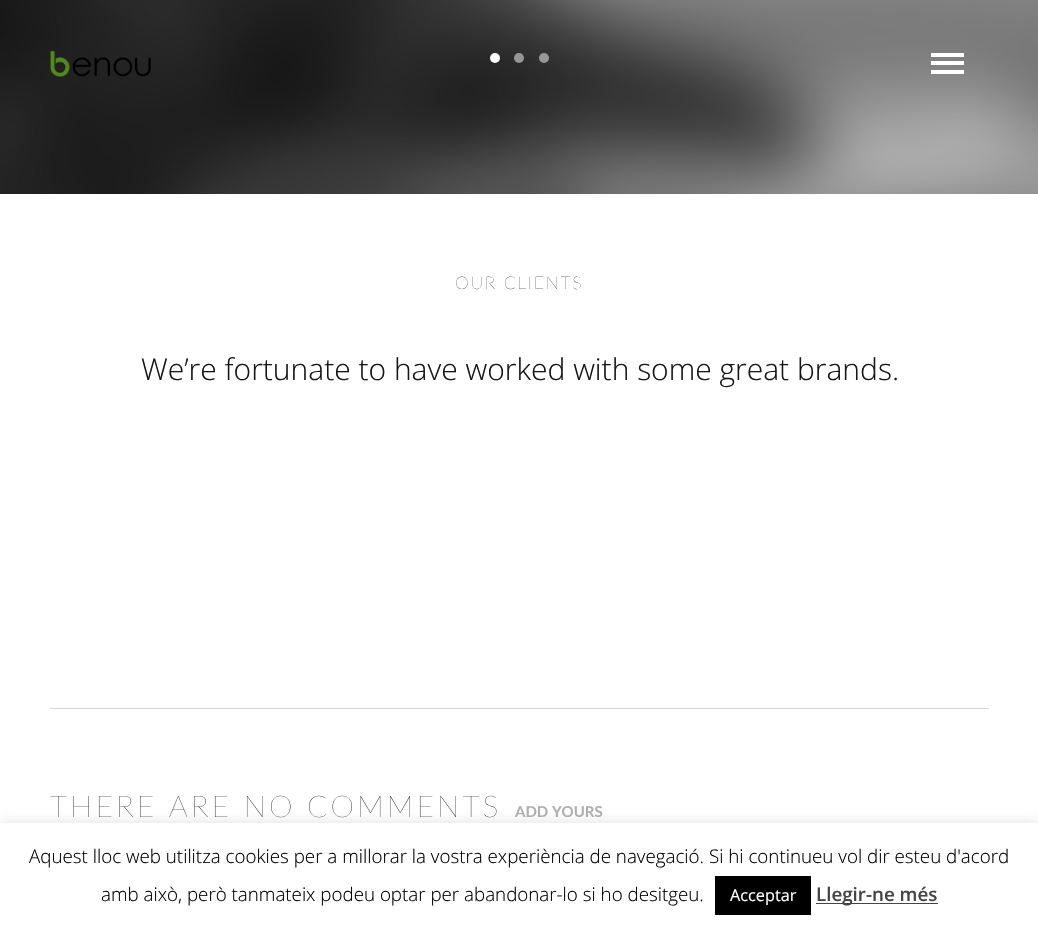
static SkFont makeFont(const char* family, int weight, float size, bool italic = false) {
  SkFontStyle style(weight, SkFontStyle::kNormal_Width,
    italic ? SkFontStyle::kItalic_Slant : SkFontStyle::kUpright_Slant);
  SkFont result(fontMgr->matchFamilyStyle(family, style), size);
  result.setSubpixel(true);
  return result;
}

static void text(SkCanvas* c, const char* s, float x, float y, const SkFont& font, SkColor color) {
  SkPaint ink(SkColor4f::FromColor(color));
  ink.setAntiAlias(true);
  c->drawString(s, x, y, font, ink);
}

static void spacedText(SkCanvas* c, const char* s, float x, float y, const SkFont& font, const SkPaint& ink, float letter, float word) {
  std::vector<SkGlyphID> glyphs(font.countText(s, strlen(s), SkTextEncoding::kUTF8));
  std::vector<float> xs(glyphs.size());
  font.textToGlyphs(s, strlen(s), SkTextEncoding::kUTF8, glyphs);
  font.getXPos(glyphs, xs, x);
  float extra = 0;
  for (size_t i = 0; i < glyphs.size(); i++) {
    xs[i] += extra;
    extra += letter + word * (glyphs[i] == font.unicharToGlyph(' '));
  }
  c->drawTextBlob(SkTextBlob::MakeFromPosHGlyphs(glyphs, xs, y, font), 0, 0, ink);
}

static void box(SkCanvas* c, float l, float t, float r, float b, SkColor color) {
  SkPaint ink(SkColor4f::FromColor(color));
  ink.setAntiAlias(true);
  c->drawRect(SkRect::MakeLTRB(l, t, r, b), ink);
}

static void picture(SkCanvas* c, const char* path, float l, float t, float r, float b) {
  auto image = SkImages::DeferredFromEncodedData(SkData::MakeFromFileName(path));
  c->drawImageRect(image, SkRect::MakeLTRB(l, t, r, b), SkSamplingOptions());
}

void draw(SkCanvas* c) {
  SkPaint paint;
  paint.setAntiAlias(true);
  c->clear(0xffffffff);
  picture(c, "img_01.png", 0, 0, 1038, 194);
  picture(c, "img_02.png", 50, 50, 151, 77);
  box(c, 931, 53, 964, 57, 0xffffffff);
  box(c, 931, 61, 964, 65, 0xffffffff);
  box(c, 931, 70, 964, 74, 0xffffffff);
  paint.setColor(0xffffffff);
  c->drawCircle(495, 58, 5, paint);
  paint.setColor(0x80ffffff);
  c->drawCircle(519, 58, 5, paint);
  c->drawCircle(544, 58, 5, paint);
  SkFont face1 = makeFont("Lato", 200, 17.5f);
  paint.setColor(0xff171617);
  spacedText(c, "OUR CLIENTS", 455, 289, face1, paint, 1.75f, 0);
  SkFont face2 = makeFont("Open Sans", 300, 30);
  text(c, "We’re fortunate to have worked with some great brands.", 141, 380, face2, 0xff171617);
  box(c, 50, 708, 989, 709, 0xffd7d7d7);
  SkFont face3 = makeFont("Lato", 200, 30);
  spacedText(c, "THERE ARE NO COMMENTS", 50, 817, face3, paint, 3, 0);
  SkFont face4 = makeFont("Lato", 700, 15);
  text(c, "ADD YOURS", 515, 817, face4, 0xffafafaf);
  paint.setColor(0x4dacabab);
  paint.setMaskFilter(SkMaskFilter::MakeBlur(kNormal_SkBlurStyle, 6));
  c->drawRect(SkRect::MakeLTRB(0, 821, 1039, 929), paint);
  paint.setMaskFilter(nullptr);
  box(c, 0, 823, 1038, 930, 0xffffffff);
  SkFont face5 = makeFont("Open Sans", 300, 18.75f);
  text(c, "Aquest lloc web utilitza cookies per a millorar la vostra experiència de navegació. Si hi continueu vol dir esteu d'acord", 29, 863, face5, 0xff000000);
  text(c, "amb això, però tanmateix podeu optar per abandonar-lo si ho desitgeu.", 101, 901, face5, 0xff000000);
  box(c, 715, 876, 811, 915, 0xff000000);
  SkFont face6 = makeFont("Open Sans", 400, 16.25f);
  text(c, "Acceptar", 730, 901, face6, 0xffffffff);
  box(c, 816, 903, 938, 904, 0xff444444);
  SkFont face7 = makeFont("Open Sans", 600, 18.75f);
  text(c, "Llegir-ne més", 816, 901, face7, 0xff444444);
}
